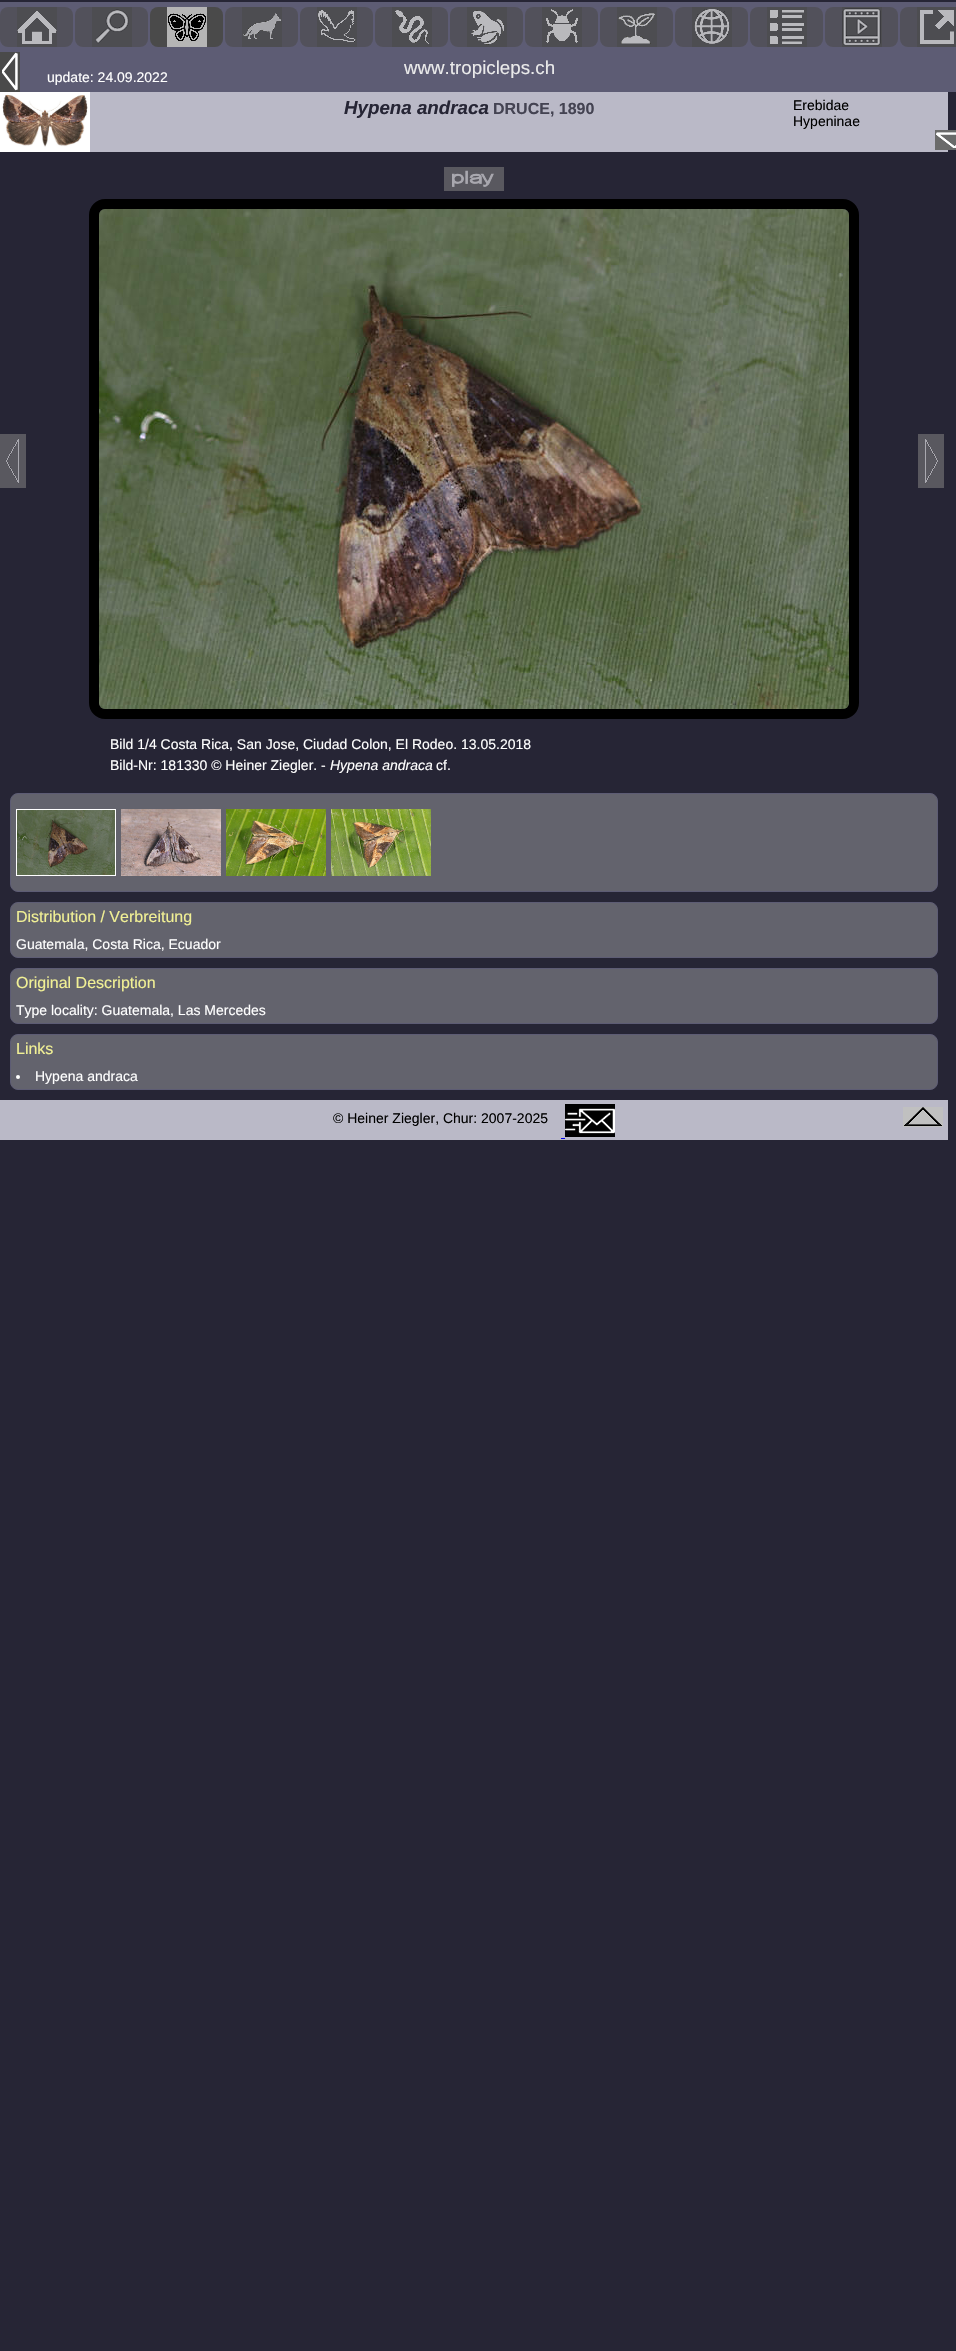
static SkFont makeFont(const char* family, int weight, float size, bool italic = false) {
  SkFontStyle style(weight, SkFontStyle::kNormal_Width,
    italic ? SkFontStyle::kItalic_Slant : SkFontStyle::kUpright_Slant);
  SkFont result(fontMgr->matchFamilyStyle(family, style), size);
  result.setSubpixel(true);
  return result;
}

static void text(SkCanvas* c, const char* s, float x, float y, const SkFont& font, SkColor color) {
  SkPaint ink(SkColor4f::FromColor(color));
  ink.setAntiAlias(true);
  c->drawString(s, x, y, font, ink);
}

static void box(SkCanvas* c, float l, float t, float r, float b, SkColor color) {
  SkPaint ink(SkColor4f::FromColor(color));
  ink.setAntiAlias(true);
  c->drawRect(SkRect::MakeLTRB(l, t, r, b), ink);
}

static void roundBox(SkCanvas* c, float l, float t, float r, float b, float radius, SkColor color) {
  SkPaint ink(SkColor4f::FromColor(color));
  ink.setAntiAlias(true);
  c->drawRoundRect(SkRect::MakeLTRB(l, t, r, b), radius, radius, ink);
}

static void picture(SkCanvas* c, const char* path, float l, float t, float r, float b) {
  auto image = SkImages::DeferredFromEncodedData(SkData::MakeFromFileName(path));
  c->drawImageRect(image, SkRect::MakeLTRB(l, t, r, b), SkSamplingOptions());
}

void draw(SkCanvas* c) {
  SkPaint paint;
  paint.setAntiAlias(true);
  c->clear(0xff262535);
  box(c, 0, 2, 956, 52, 0xff5d5c74);
  roundBox(c, 0, 7, 73, 47, 8, 0xff52515b);
  picture(c, "img_01.png", 17, 7, 57, 47);
  roundBox(c, 75, 7, 148, 47, 8, 0xff52515b);
  picture(c, "img_02.png", 92, 7, 132, 47);
  roundBox(c, 150, 7, 223, 47, 8, 0xff4a4a4a);
  picture(c, "img_03.png", 167, 7, 207, 47);
  roundBox(c, 225, 7, 298, 47, 8, 0xff52515b);
  picture(c, "img_04.png", 242, 7, 282, 47);
  roundBox(c, 300, 7, 373, 47, 8, 0xff52515b);
  picture(c, "img_05.png", 317, 7, 357, 47);
  roundBox(c, 375, 7, 448, 47, 8, 0xff52515b);
  picture(c, "img_06.png", 392, 7, 432, 47);
  roundBox(c, 450, 7, 523, 47, 8, 0xff52515b);
  picture(c, "img_07.png", 467, 7, 507, 47);
  roundBox(c, 525, 7, 598, 47, 8, 0xff52515b);
  picture(c, "img_08.png", 542, 7, 582, 47);
  roundBox(c, 600, 7, 673, 47, 8, 0xff52515b);
  picture(c, "img_09.png", 617, 7, 657, 47);
  roundBox(c, 675, 7, 748, 47, 8, 0xff52515b);
  picture(c, "img_10.png", 692, 7, 732, 47);
  roundBox(c, 750, 7, 823, 47, 8, 0xff52515b);
  picture(c, "img_11.png", 767, 7, 807, 47);
  roundBox(c, 825, 7, 898, 47, 8, 0xff52515b);
  picture(c, "img_12.png", 842, 7, 882, 47);
  roundBox(c, 900, 7, 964, 47, 8, 0xff52515b);
  picture(c, "img_13.png", 917, 7, 956, 47);
  box(c, 20, 52, 956, 92, 0xff5d5c74);
  picture(c, "img_14.png", 0, 52, 20, 92);
  SkFont face1 = makeFont("Liberation Sans", 400, 14);
  text(c, "update: 24.09.2022", 47, 82, face1, 0xffffffff);
  SkFont face2 = makeFont("Liberation Sans", 400, 18.75f);
  text(c, "www.tropicleps.ch", 404, 74, face2, 0xffeaeaea);
  box(c, 90, 92, 948, 152, 0xffbab9c7);
  picture(c, "img_15.png", 0, 92, 90, 152);
  SkFont face3 = makeFont("Liberation Sans", 700, 18.75f, true);
  text(c, "Hypena andraca", 344, 114, face3, 0xff262535);
  SkFont face4 = makeFont("Liberation Sans", 700, 16);
  text(c, "DRUCE, 1890", 493, 114, face4, 0xff444352);
  text(c, "Erebidae", 793, 110, face1, 0xff000000);
  text(c, "Hypeninae", 793, 126, face1, 0xff000000);
  picture(c, "img_16.png", 935, 130, 956, 150);
  picture(c, "img_17.png", 444, 167, 504, 191);
  picture(c, "img_18.png", 0, 434, 26, 488);
  paint.setStyle(SkPaint::kStroke_Style);
  paint.setStrokeWidth(10);
  paint.setColor(0xff000000);
  c->drawRoundRect(SkRect::MakeLTRB(94, 204, 854, 714), 11, 11, paint);
  picture(c, "img_19.png", 99, 209, 849, 709);
  picture(c, "img_20.png", 918, 434, 944, 488);
  text(c, "Bild 1/4 Costa Rica, San Jose, Ciudad Colon, El Rodeo. 13.05.2018", 110, 749, face1, 0xffffffff);
  text(c, "Bild-Nr: 181330 © Heiner Ziegler. -", 110, 770, face1, 0xffffffff);
  SkFont face5 = makeFont("Liberation Sans", 400, 14, true);
  text(c, "Hypena andraca", 330, 770, face5, 0xffffffff);
  text(c, "cf.", 436, 770, face1, 0xffffffff);
  paint.setStyle(SkPaint::kFill_Style);
  paint.setColor(0xff63636d);
  c->drawRoundRect(SkRect::MakeLTRB(10.5f, 793.5f, 937.5f, 891.5f), 7.5f, 7.5f, paint);
  paint.setStyle(SkPaint::kStroke_Style);
  paint.setStrokeWidth(1);
  paint.setColor(0xff5d5c74);
  c->drawRoundRect(SkRect::MakeLTRB(10.5f, 793.5f, 937.5f, 891.5f), 7.5f, 7.5f, paint);
  paint.setColor(0xffffffff);
  c->drawRect(SkRect::MakeLTRB(16.5f, 809.5f, 115.5f, 875.5f), paint);
  picture(c, "img_21.png", 17, 810, 115, 875);
  picture(c, "img_22.png", 121, 809, 221, 876);
  picture(c, "img_23.png", 226, 809, 326, 876);
  picture(c, "img_24.png", 331, 809, 431, 876);
  paint.setStyle(SkPaint::kFill_Style);
  paint.setColor(0xff63636d);
  c->drawRoundRect(SkRect::MakeLTRB(10.5f, 902.5f, 937.5f, 957.5f), 7.5f, 7.5f, paint);
  paint.setStyle(SkPaint::kStroke_Style);
  paint.setColor(0xff5d5c74);
  c->drawRoundRect(SkRect::MakeLTRB(10.5f, 902.5f, 937.5f, 957.5f), 7.5f, 7.5f, paint);
  SkFont face6 = makeFont("Liberation Sans", 400, 16);
  text(c, "Distribution / Verbreitung", 16, 922, face6, 0xfff1f095);
  text(c, "Guatemala, Costa Rica, Ecuador", 16, 949, face1, 0xffffffff);
  paint.setStyle(SkPaint::kFill_Style);
  paint.setColor(0xff63636d);
  c->drawRoundRect(SkRect::MakeLTRB(10.5f, 968.5f, 937.5f, 1023.5f), 7.5f, 7.5f, paint);
  paint.setStyle(SkPaint::kStroke_Style);
  paint.setColor(0xff5d5c74);
  c->drawRoundRect(SkRect::MakeLTRB(10.5f, 968.5f, 937.5f, 1023.5f), 7.5f, 7.5f, paint);
  text(c, "Original Description", 16, 988, face6, 0xfff1f095);
  text(c, "Type locality: Guatemala, Las Mercedes", 16, 1015, face1, 0xffffffff);
  paint.setStyle(SkPaint::kFill_Style);
  paint.setColor(0xff63636d);
  c->drawRoundRect(SkRect::MakeLTRB(10.5f, 1034.5f, 937.5f, 1089.5f), 7.5f, 7.5f, paint);
  paint.setStyle(SkPaint::kStroke_Style);
  paint.setColor(0xff5d5c74);
  c->drawRoundRect(SkRect::MakeLTRB(10.5f, 1034.5f, 937.5f, 1089.5f), 7.5f, 7.5f, paint);
  text(c, "Links", 16, 1054, face6, 0xfff1f095);
  paint.setStyle(SkPaint::kFill_Style);
  paint.setColor(0xffffffff);
  c->drawCircle(18, 1077, 2, paint);
  text(c, "Hypena andraca", 35, 1081, face1, 0xffffffff);
  box(c, 0, 1100, 948, 1140, 0xffbab9c7);
  text(c, "© Heiner Ziegler, Chur: 2007-2025", 333, 1123, face1, 0xff000000);
  box(c, 561, 1138, 565, 1139, 0xff0000ee);
  picture(c, "img_25.png", 565, 1104, 615, 1137);
  picture(c, "img_26.png", 903, 1107, 943, 1127);
}
